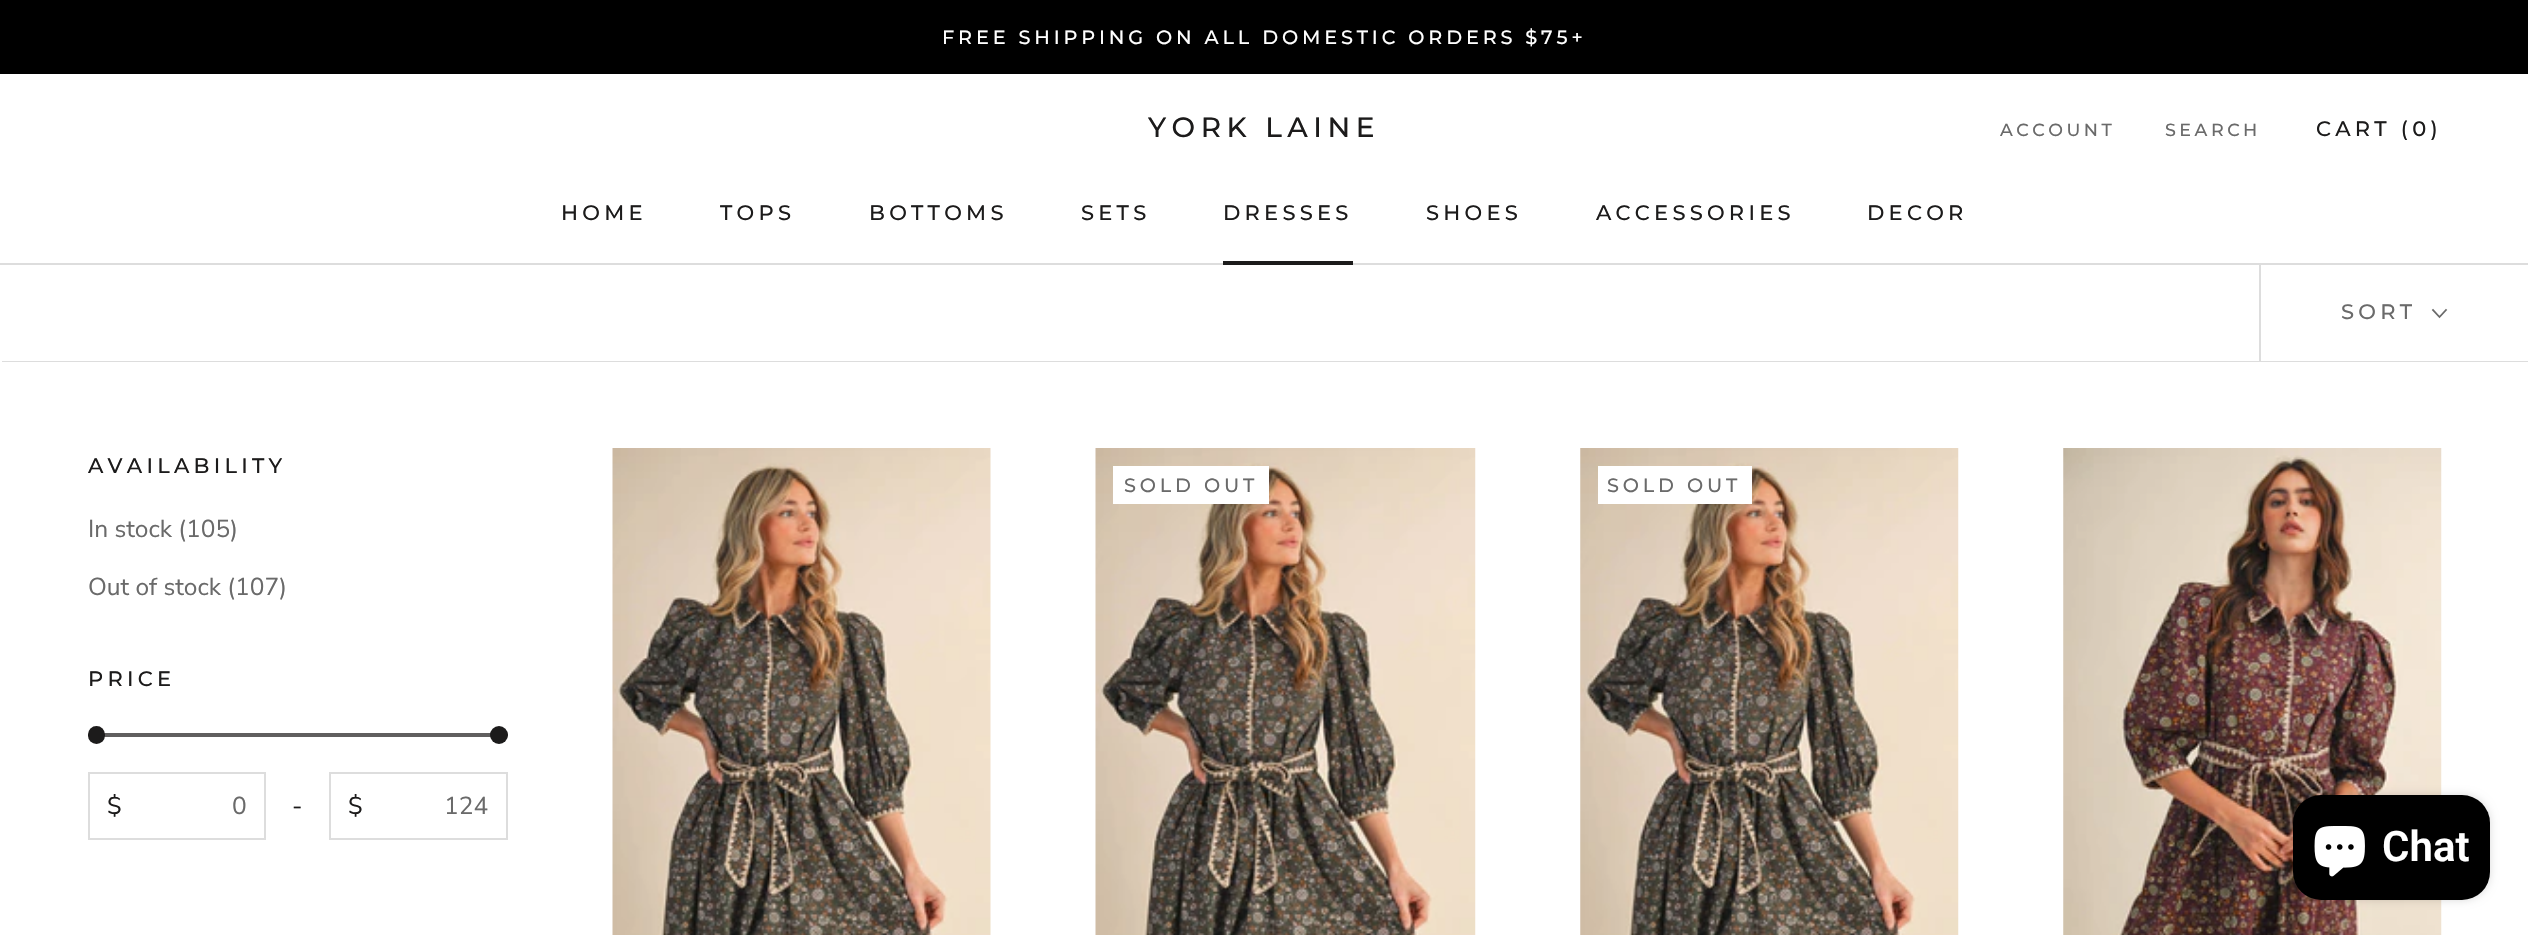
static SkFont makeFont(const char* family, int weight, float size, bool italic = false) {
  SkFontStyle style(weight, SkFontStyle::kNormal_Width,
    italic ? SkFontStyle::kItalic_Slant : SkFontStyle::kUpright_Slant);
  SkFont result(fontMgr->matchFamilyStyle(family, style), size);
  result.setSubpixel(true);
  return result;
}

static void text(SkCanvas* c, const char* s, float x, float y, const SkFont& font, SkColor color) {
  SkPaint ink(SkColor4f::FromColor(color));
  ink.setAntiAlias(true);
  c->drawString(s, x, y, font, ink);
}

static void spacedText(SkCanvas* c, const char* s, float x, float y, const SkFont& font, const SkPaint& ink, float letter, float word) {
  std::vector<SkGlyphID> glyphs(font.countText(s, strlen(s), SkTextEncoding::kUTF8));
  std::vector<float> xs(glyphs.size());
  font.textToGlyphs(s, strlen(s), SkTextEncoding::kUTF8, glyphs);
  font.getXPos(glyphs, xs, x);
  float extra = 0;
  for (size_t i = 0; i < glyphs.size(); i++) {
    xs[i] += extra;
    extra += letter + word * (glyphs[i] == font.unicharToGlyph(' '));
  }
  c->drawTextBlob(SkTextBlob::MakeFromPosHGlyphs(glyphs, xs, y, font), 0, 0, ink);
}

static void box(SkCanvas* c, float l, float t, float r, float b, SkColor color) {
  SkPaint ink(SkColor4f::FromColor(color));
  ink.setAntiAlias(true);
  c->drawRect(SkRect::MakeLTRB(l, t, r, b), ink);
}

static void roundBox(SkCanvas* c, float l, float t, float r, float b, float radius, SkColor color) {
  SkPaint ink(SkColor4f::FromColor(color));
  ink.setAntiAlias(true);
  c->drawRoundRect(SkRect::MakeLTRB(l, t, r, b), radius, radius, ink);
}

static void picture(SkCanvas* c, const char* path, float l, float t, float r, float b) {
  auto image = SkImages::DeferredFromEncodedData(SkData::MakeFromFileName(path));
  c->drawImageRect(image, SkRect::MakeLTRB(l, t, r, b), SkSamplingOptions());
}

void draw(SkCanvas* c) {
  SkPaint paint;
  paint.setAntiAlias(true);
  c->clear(0xffffffff);
  box(c, 0, 0, 2528, 74, 0xff000000);
  SkFont face1 = makeFont("Montserrat", 500, 19.25f);
  paint.setColor(0xffffffff);
  spacedText(c, "FREE SHIPPING ON ALL DOMESTIC ORDERS $75+", 942, 44, face1, paint, 3.85f, 0);
  paint.setColor(0xffdddddd);
  c->drawPath(SkPathBuilder().moveTo(2, 360).lineTo(2, 362).lineTo(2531, 362).lineTo(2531, 266).lineTo(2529, 266).lineTo(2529, 360).close().detach(), paint);
  box(c, 2, 360, 2528, 361, 0xffffffff);
  box(c, 2259, 264, 2261, 361, 0xffdddddd);
  box(c, 0, 263, 2528, 265, 0xffdddddd);
  SkFont face2 = makeFont("Montserrat", 500, 28);
  paint.setColor(0xff1c1b1b);
  spacedText(c, "YORK LAINE", 1148, 137, face2, paint, 5.5f, 0);
  SkFont face3 = makeFont("Montserrat", 500, 17.5f);
  paint.setColor(0xff6a6a6a);
  spacedText(c, "ACCOUNT", 2000, 136, face3, paint, 3.5f, 0);
  spacedText(c, "SEARCH", 2165, 136, face3, paint, 3.5f, 0);
  SkFont face4 = makeFont("Montserrat", 500, 21);
  paint.setColor(0xff1c1b1b);
  spacedText(c, "CART (0)", 2316, 136, face4, paint, 4.25f, 0);
  spacedText(c, "HOME", 561, 220, face4, paint, 4.25f, 0);
  spacedText(c, "TOPS", 720, 220, face4, paint, 4.25f, 0);
  spacedText(c, "BOTTOMS", 869, 220, face4, paint, 4.25f, 0);
  spacedText(c, "SETS", 1081, 220, face4, paint, 4.25f, 0);
  spacedText(c, "DRESSES", 1223, 220, face4, paint, 4.25f, 0);
  box(c, 1223, 261, 1353, 265, 0xff1c1b1b);
  spacedText(c, "SHOES", 1426, 220, face4, paint, 4.25f, 0);
  spacedText(c, "ACCESSORIES", 1596, 220, face4, paint, 4.25f, 0);
  spacedText(c, "DECOR", 1867, 220, face4, paint, 4.25f, 0);
  paint.setColor(0xff6a6a6a);
  spacedText(c, "SORT", 2341, 319, face4, paint, 4.25f, 0);
  paint.setStyle(SkPaint::kStroke_Style);
  paint.setStrokeWidth(1.8f);
  paint.setStrokeCap(SkPaint::kSquare_Cap);
  c->drawPath(SkPathBuilder().moveTo(2446, 310).lineTo(2439.5f, 317).lineTo(2433, 310).detach(), paint);
  paint.setStyle(SkPaint::kFill_Style);
  paint.setColor(0xff1c1b1b);
  spacedText(c, "AVAILABILITY", 88, 473, face4, paint, 4.25f, 0);
  SkFont face5 = makeFont("Nunito Sans", 400, 24.5f);
  text(c, "In stock (105)", 88, 537, face5, 0xff6a6a6a);
  text(c, "Out of stock (107)", 88, 595, face5, 0xff6a6a6a);
  spacedText(c, "PRICE", 88, 686, face4, paint, 4.25f, 0);
  roundBox(c, 88, 733, 508, 737, 2, 0xff605f5f);
  roundBox(c, 88, 726, 105, 744, 8.5f, 0xff1c1b1b);
  c->drawCircle(499, 735, 9, paint);
  paint.setStyle(SkPaint::kStroke_Style);
  paint.setStrokeWidth(2);
  paint.setStrokeCap(SkPaint::kButt_Cap);
  paint.setColor(0xffdddddd);
  c->drawRect(SkRect::MakeLTRB(89, 773, 265, 839), paint);
  text(c, "$", 107, 814, face5, 0xff1c1b1b);
  text(c, "0", 232, 814, face5, 0xff6a6a6a);
  text(c, "-", 292, 814, face5, 0xff1c1b1b);
  c->drawRect(SkRect::MakeLTRB(330, 773, 507, 839), paint);
  text(c, "$", 348, 814, face5, 0xff1c1b1b);
  text(c, "124", 444, 814, face5, 0xff6a6a6a);
  picture(c, "img_01.png", 612, 448, 991, 935);
  picture(c, "img_02.png", 1095, 448, 1476, 935);
  box(c, 1113, 466, 1269, 504, 0xffffffff);
  paint.setStyle(SkPaint::kFill_Style);
  paint.setColor(0xff6a6a6a);
  spacedText(c, "SOLD OUT", 1124, 492, face1, paint, 3.85f, 0);
  picture(c, "img_03.png", 1580, 448, 1959, 935);
  box(c, 1598, 466, 1752, 504, 0xffffffff);
  spacedText(c, "SOLD OUT", 1607, 492, face1, paint, 3.85f, 0);
  picture(c, "img_04.png", 2063, 448, 2442, 935);
  paint.setColor(0x26000000);
  paint.setMaskFilter(SkMaskFilter::MakeBlur(kNormal_SkBlurStyle, 4.5f));
  c->drawRoundRect(SkRect::MakeLTRB(2293, 795, 2490, 900), 28, 28, paint);
  paint.setMaskFilter(nullptr);
  roundBox(c, 2293, 795, 2490, 900, 28, 0xff000000);
  picture(c, "img_05.png", 2314, 826, 2365, 877);
  SkFont face6 = makeFont("Roboto", 600, 42);
  text(c, "Chat", 2382, 861, face6, 0xffffffff);
}
